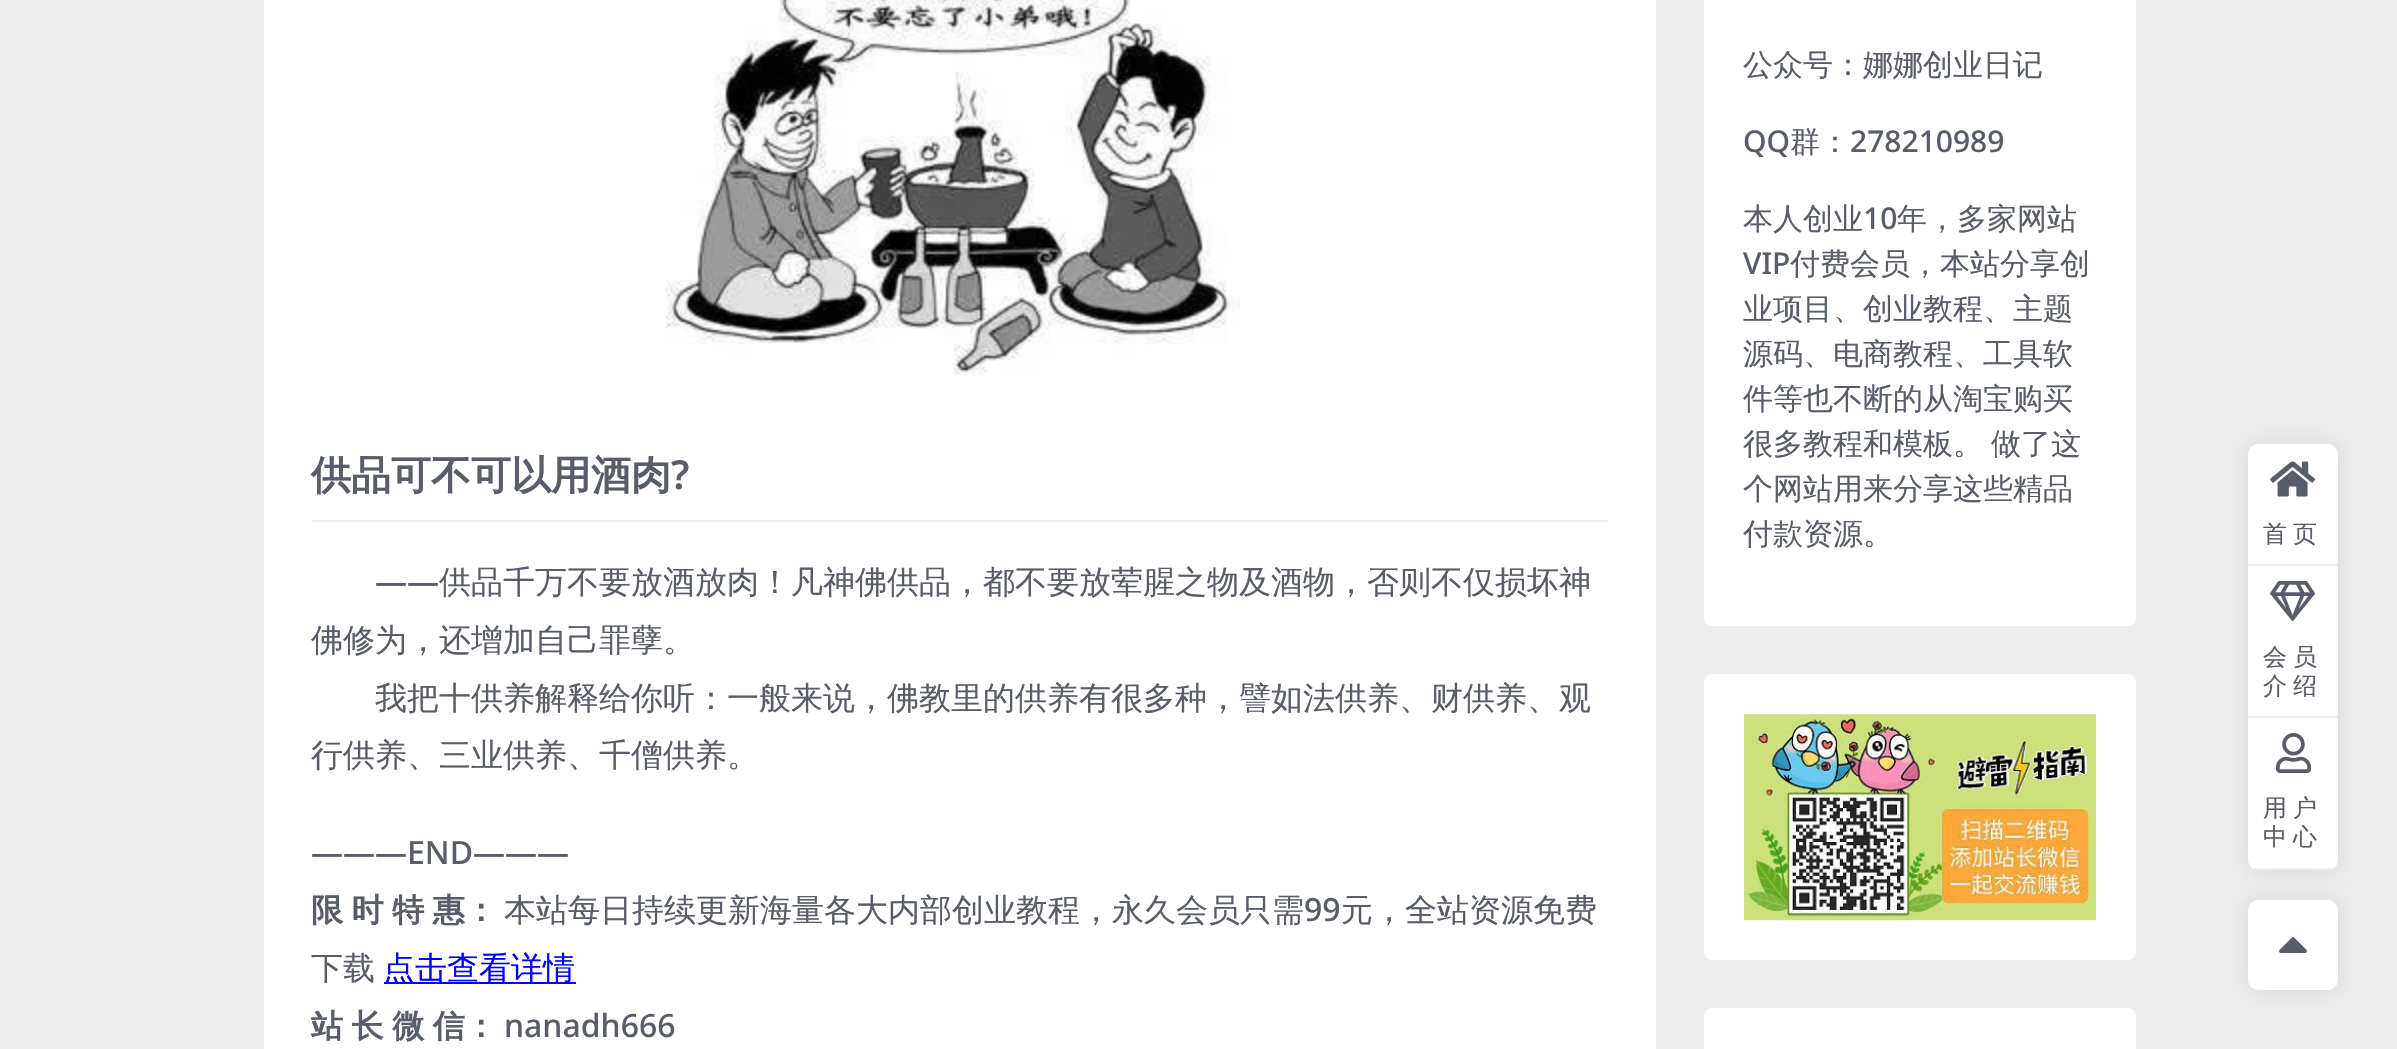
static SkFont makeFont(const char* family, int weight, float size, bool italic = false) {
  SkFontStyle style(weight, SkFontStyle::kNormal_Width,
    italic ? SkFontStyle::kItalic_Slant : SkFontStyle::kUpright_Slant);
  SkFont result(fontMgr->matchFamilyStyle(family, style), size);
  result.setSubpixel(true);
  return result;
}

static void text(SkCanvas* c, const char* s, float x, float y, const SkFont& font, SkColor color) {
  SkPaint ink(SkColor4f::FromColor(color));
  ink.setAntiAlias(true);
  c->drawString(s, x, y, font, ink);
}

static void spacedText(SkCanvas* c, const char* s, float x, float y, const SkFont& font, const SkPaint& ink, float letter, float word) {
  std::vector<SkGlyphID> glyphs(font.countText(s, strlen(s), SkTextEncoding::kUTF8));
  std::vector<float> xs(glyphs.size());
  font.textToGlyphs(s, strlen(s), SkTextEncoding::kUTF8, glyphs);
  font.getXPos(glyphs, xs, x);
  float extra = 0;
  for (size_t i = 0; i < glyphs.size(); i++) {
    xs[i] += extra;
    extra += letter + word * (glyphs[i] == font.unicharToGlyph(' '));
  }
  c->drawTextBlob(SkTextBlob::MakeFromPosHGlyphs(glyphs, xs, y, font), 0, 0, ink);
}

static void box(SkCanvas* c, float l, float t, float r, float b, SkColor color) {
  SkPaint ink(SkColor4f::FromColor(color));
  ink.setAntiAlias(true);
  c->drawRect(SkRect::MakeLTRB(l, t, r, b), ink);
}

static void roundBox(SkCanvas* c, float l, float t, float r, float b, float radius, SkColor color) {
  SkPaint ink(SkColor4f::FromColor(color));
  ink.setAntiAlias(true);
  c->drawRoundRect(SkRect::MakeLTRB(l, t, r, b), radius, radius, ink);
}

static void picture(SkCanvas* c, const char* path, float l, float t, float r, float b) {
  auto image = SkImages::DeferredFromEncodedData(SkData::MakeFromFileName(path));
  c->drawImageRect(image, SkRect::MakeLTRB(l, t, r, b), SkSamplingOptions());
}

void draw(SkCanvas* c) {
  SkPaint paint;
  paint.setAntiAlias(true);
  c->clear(0xffededed);
  roundBox(c, 1704, -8, 2136, 626, 8, 0xffffffff);
  SkFont face1 = makeFont("WenQuanYi Zen Hei", 500, 30);
  text(c, "公众号：娜娜创业日记", 1743, 75, face1, 0xff595d69);
  SkFont face2 = makeFont("Noto Sans", 500, 30);
  text(c, "QQ", 1743, 152, face2, 0xff595d69);
  text(c, "群：", 1790, 152, face1, 0xff595d69);
  text(c, "278210989", 1850, 152, face2, 0xff595d69);
  text(c, "本人创业", 1743, 229, face1, 0xff595d69);
  text(c, "10", 1863, 229, face2, 0xff595d69);
  text(c, "年，多家网站", 1897, 229, face1, 0xff595d69);
  text(c, "VIP", 1743, 274, face2, 0xff595d69);
  text(c, "付费会员，本站分享创", 1790, 274, face1, 0xff595d69);
  text(c, "业项目、创业教程、主题", 1743, 319, face1, 0xff595d69);
  text(c, "源码、电商教程、工具软", 1743, 364, face1, 0xff595d69);
  text(c, "件等也不断的从淘宝购买", 1743, 409, face1, 0xff595d69);
  paint.setColor(0xff595d69);
  spacedText(c, "很多教程和模板。 做了这", 1743, 454, face1, paint, 0, -1);
  text(c, "个网站用来分享这些精品", 1743, 499, face1, 0xff595d69);
  text(c, "付款资源。", 1743, 544, face1, 0xff595d69);
  roundBox(c, 1704, 674, 2136, 960, 8, 0xffffffff);
  picture(c, "img_01.png", 1744, 714, 2096, 921);
  roundBox(c, 1704, 1008, 2136, 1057, 8, 0xffffffff);
  box(c, 264, 0, 1656, 1049, 0xffffffff);
  picture(c, "img_02.png", 665, 0, 1240, 376);
  box(c, 312, 520, 1608, 522, 0xffefefef);
  SkFont face3 = makeFont("WenQuanYi Zen Hei", 700, 40);
  text(c, "供品可不可以用酒肉", 311, 489, face3, 0xff595d69);
  SkFont face4 = makeFont("Noto Sans", 600, 40);
  text(c, "?", 671, 489, face4, 0xff595d69);
  SkFont face5 = makeFont("Noto Sans", 500, 32);
  text(c, "——", 375, 593, face5, 0xff595d69);
  SkFont face6 = makeFont("WenQuanYi Zen Hei", 500, 32);
  text(c, "供品千万不要放酒放肉！凡神佛供品，都不要放荤腥之物及酒物，否则不仅损坏神", 439, 593, face6, 0xff595d69);
  text(c, "佛修为，还增加自己罪孽。", 311, 651, face6, 0xff595d69);
  text(c, "我把十供养解释给你听：一般来说，佛教里的供养有很多种，譬如法供养、财供养、观", 375, 709, face6, 0xff595d69);
  text(c, "行供养、三业供养、千僧供养。", 311, 766, face6, 0xff595d69);
  text(c, "———END———", 311, 864, face5, 0xff595d69);
  SkFont face7 = makeFont("WenQuanYi Zen Hei", 700, 32);
  spacedText(c, "限 时 特 惠：", 311, 921, face7, paint, 0, -1);
  text(c, "本站每日持续更新海量各大内部创业教程，永久会员只需", 504, 921, face6, 0xff595d69);
  text(c, "99", 1304, 921, face5, 0xff595d69);
  text(c, "元，全站资源免费", 1341, 921, face6, 0xff595d69);
  text(c, "下载", 311, 979, face6, 0xff595d69);
  box(c, 384, 982, 576, 984, 0xff0000ff);
  text(c, "点击查看详情", 383, 979, face6, 0xff0000ff);
  spacedText(c, "站 长 微 信：", 311, 1037, face7, paint, 0, -1);
  text(c, "nanadh666", 504, 1037, face5, 0xff595d69);
  paint.setColor(0x1a000000);
  paint.setMaskFilter(SkMaskFilter::MakeBlur(kNormal_SkBlurStyle, 10));
  c->drawRoundRect(SkRect::MakeLTRB(2248, 444, 2338, 870), 10, 10, paint);
  paint.setMaskFilter(nullptr);
  paint.setColor(0xffffffff);
  c->drawPath(SkPathBuilder().moveTo(2258, 444).lineTo(2328, 444).cubicTo(2333.5f, 444, 2338, 448.5f, 2338, 454).lineTo(2338, 566).lineTo(2248, 566).lineTo(2248, 454).cubicTo(2248, 448.5f, 2252.5f, 444, 2258, 444).close().detach(), paint);
  box(c, 2248, 564, 2338, 566, 0xffeeeeee);
  picture(c, "img_03.png", 2270, 461, 2315, 497);
  SkFont face8 = makeFont("WenQuanYi Zen Hei", 500, 24);
  paint.setColor(0xff595d69);
  spacedText(c, "首页", 2263, 542, face8, paint, 6, 0);
  box(c, 2248, 566, 2338, 716, 0xffffffff);
  box(c, 2248, 716, 2338, 718, 0xffeeeeee);
  picture(c, "img_04.png", 2270, 581, 2315, 621);
  spacedText(c, "会员", 2263, 665, face8, paint, 6, 0);
  spacedText(c, "介绍", 2263, 694, face8, paint, 6, 0);
  paint.setColor(0xffffffff);
  c->drawPath(SkPathBuilder().moveTo(2248, 718).lineTo(2338, 718).lineTo(2338, 860).cubicTo(2338, 865.5f, 2333.5f, 870, 2328, 870).lineTo(2258, 870).cubicTo(2252.5f, 870, 2248, 865.5f, 2248, 860).close().detach(), paint);
  c->save();
  c->clipPath(SkPathBuilder().moveTo(2258, 444).lineTo(2328, 444).cubicTo(2333.5f, 444, 2338, 448.5f, 2338, 454).lineTo(2338, 860).cubicTo(2338, 865.5f, 2333.5f, 870, 2328, 870).lineTo(2258, 870).cubicTo(2252.5f, 870, 2248, 865.5f, 2248, 860).lineTo(2248, 454).cubicTo(2248, 448.5f, 2252.5f, 444, 2258, 444).close().detach(), true);
  box(c, 2248, 868, 2338, 870, 0xffeeeeee);
  c->restore();
  picture(c, "img_05.png", 2276, 733, 2311, 773);
  paint.setColor(0xff595d69);
  spacedText(c, "用户", 2263, 816, face8, paint, 6, 0);
  spacedText(c, "中心", 2263, 845, face8, paint, 6, 0);
  paint.setColor(0x1a000000);
  paint.setMaskFilter(SkMaskFilter::MakeBlur(kNormal_SkBlurStyle, 10));
  c->drawRoundRect(SkRect::MakeLTRB(2248, 900, 2338, 990), 10, 10, paint);
  paint.setMaskFilter(nullptr);
  roundBox(c, 2248, 900, 2338, 990, 10, 0xffffffff);
  picture(c, "img_06.png", 2279, 937, 2307, 953);
}
